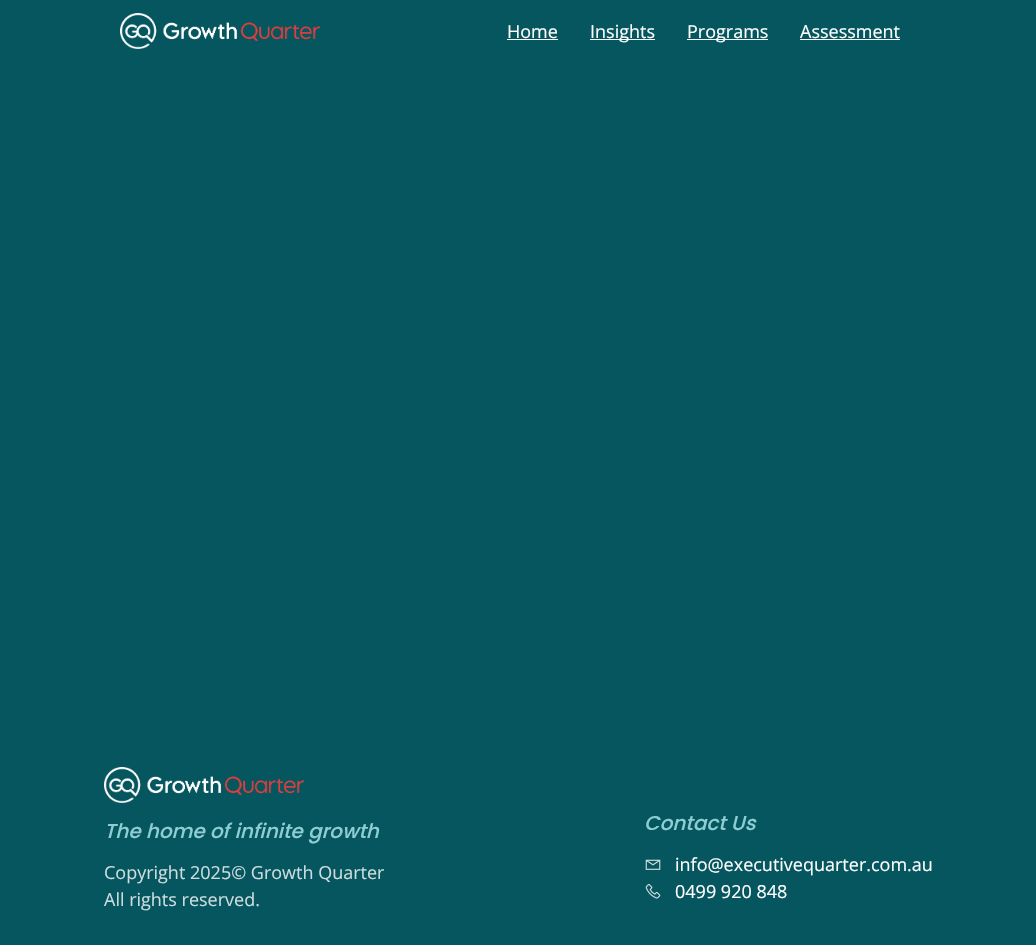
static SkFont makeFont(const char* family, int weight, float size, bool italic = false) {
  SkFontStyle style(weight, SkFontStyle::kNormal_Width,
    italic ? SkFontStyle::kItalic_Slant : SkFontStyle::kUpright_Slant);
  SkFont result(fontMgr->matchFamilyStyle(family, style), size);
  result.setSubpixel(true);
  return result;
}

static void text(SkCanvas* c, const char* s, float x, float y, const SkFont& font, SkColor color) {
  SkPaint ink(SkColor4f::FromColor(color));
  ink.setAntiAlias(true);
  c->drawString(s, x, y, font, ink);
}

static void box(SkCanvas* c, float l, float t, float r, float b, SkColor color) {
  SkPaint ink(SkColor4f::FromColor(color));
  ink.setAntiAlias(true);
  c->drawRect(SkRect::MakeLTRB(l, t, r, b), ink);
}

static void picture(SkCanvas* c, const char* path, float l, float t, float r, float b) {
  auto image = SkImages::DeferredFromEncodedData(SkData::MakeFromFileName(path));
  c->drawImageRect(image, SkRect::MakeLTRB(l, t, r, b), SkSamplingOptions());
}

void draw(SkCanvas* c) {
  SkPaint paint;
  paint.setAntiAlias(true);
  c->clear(0xff05565e);
  picture(c, "img_01.png", 120, 13, 320, 49);
  SkFont face1 = makeFont("Open Sans", 400, 18);
  text(c, "Home", 507, 38, face1, 0xffffffff);
  box(c, 507, 39, 558, 40, 0xffffffff);
  box(c, 590, 39, 655, 40, 0xffffffff);
  text(c, "Insights", 590, 38, face1, 0xffffffff);
  box(c, 687, 39, 768, 40, 0xffffffff);
  text(c, "Programs", 687, 38, face1, 0xffffffff);
  text(c, "Assessment", 800, 38, face1, 0xffffffff);
  box(c, 800, 39, 900, 40, 0xffffffff);
  picture(c, "img_02.png", 104, 767, 304, 803);
  SkFont face2 = makeFont("Poppins", 500, 20, true);
  text(c, "The home of infinite growth", 104, 838, face2, 0xff8eced3);
  text(c, "Copyright 2025© Growth Quarter", 104, 879, face1, 0xffcddddf);
  text(c, "All rights reserved.", 104, 906, face1, 0xffcddddf);
  text(c, "Contact Us", 644, 830, face2, 0xff8eced3);
  picture(c, "img_03.png", 645, 859, 661, 870);
  text(c, "info@executivequarter.com.au", 675, 871, face1, 0xffffffff);
  picture(c, "img_04.png", 645, 884, 661, 899);
  text(c, "0499 920 848", 675, 898, face1, 0xffffffff);
}
